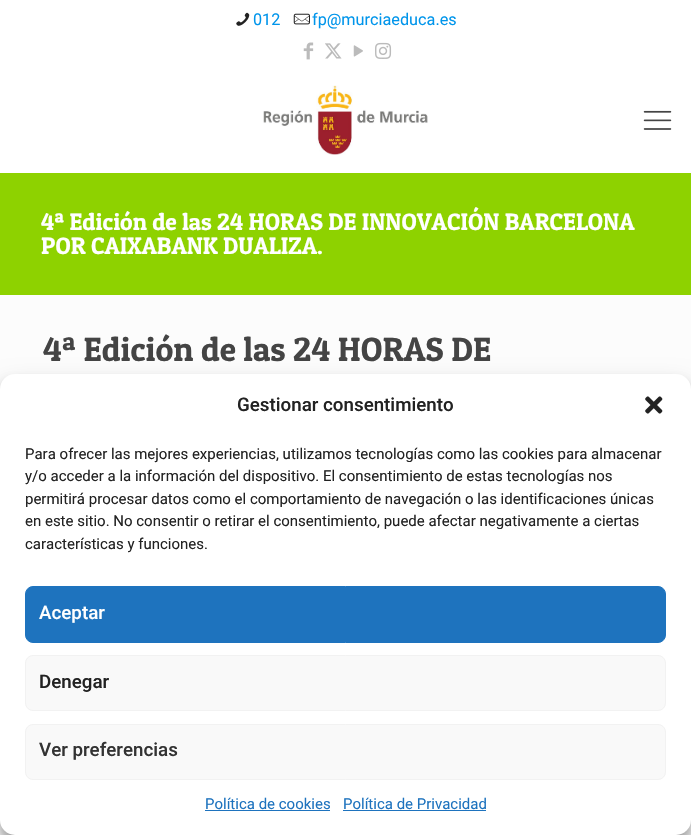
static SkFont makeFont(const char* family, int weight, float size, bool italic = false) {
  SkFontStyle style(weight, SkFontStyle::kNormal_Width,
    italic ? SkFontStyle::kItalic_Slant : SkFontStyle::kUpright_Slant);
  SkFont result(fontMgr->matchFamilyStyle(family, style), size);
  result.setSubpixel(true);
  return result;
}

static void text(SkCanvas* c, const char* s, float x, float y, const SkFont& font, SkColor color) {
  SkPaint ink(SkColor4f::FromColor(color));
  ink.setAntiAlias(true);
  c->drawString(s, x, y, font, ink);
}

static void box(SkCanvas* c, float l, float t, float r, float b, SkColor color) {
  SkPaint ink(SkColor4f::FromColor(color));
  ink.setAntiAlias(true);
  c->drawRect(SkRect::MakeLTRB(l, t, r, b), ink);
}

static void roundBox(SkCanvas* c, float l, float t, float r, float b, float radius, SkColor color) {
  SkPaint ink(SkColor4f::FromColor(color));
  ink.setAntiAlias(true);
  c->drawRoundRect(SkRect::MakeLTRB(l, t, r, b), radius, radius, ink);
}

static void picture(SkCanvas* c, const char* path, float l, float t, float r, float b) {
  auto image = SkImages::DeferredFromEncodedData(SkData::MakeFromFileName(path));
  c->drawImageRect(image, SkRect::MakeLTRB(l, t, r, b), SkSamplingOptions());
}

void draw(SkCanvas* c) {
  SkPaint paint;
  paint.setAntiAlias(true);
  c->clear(0xfffcfcfc);
  box(c, 0, 173, 691, 295, 0xff8ed200);
  box(c, 0, 0, 691, 173, 0xffffffff);
  picture(c, "img_01.png", 236, 12, 250, 26);
  SkFont face1 = makeFont("Roboto", 400, 16.25f);
  text(c, "012", 253, 25, face1, 0xff0095eb);
  picture(c, "img_02.png", 293, 13, 310, 25);
  text(c, "fp@murciaeduca.es", 312, 25, face1, 0xff0095eb);
  picture(c, "img_03.png", 303, 42, 314, 60);
  picture(c, "img_04.png", 325, 43, 342, 59);
  picture(c, "img_05.png", 353, 45, 363, 57);
  picture(c, "img_06.png", 375, 42, 392, 59);
  picture(c, "img_07.png", 263, 85, 428, 155);
  picture(c, "img_08.png", 643, 110, 672, 130);
  SkFont face2 = makeFont("Patua One", 400, 23.75f);
  text(c, "4ª Edición de las 24 HORAS DE INNOVACIÓN BARCELONA", 41, 230, face2, 0xffffffff);
  text(c, "POR CAIXABANK DUALIZA.", 41, 254, face2, 0xffffffff);
  SkFont face3 = makeFont("Patua One", 400, 33.75f);
  text(c, "4ª Edición de las 24 HORAS DE", 43, 361, face3, 0xff444444);
  paint.setColor(0x3b000000);
  paint.setMaskFilter(SkMaskFilter::MakeBlur(kNormal_SkBlurStyle, 4));
  c->drawRoundRect(SkRect::MakeLTRB(0, 381, 691, 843), 15, 15, paint);
  paint.setMaskFilter(nullptr);
  paint.setColor(0x30000000);
  paint.setMaskFilter(SkMaskFilter::MakeBlur(kNormal_SkBlurStyle, 12.5f));
  c->drawRoundRect(SkRect::MakeLTRB(0, 386, 691, 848), 15, 15, paint);
  paint.setMaskFilter(nullptr);
  roundBox(c, 0, 374, 691, 835, 15, 0xffffffff);
  SkFont face4 = makeFont("Roboto", 500, 18.75f);
  text(c, "Gestionar consentimiento", 237, 411, face4, 0xff222222);
  picture(c, "img_09.png", 645, 396, 663, 414);
  SkFont face5 = makeFont("Roboto", 400, 15);
  text(c, "Para ofrecer las mejores experiencias, utilizamos tecnologías como las cookies para almacenar", 25, 459, face5, 0xff222222);
  text(c, "y/o acceder a la información del dispositivo. El consentimiento de estas tecnologías nos", 25, 481, face5, 0xff222222);
  text(c, "permitirá procesar datos como el comportamiento de navegación o las identificaciones únicas", 25, 504, face5, 0xff222222);
  text(c, "en este sitio. No consentir o retirar el consentimiento, puede afectar negativamente a ciertas", 25, 526, face5, 0xff222222);
  text(c, "características y funciones.", 25, 549, face5, 0xff222222);
  paint.setColor(0xff1e73be);
  c->drawRoundRect(SkRect::MakeLTRB(25.5f, 586.5f, 665.5f, 642.5f), 7.5f, 7.5f, paint);
  paint.setStyle(SkPaint::kStroke_Style);
  paint.setStrokeWidth(1);
  c->drawRoundRect(SkRect::MakeLTRB(25.5f, 586.5f, 665.5f, 642.5f), 7.5f, 7.5f, paint);
  text(c, "Aceptar", 39, 619, face4, 0xffffffff);
  paint.setStyle(SkPaint::kFill_Style);
  paint.setColor(0xfff9f9f9);
  c->drawRoundRect(SkRect::MakeLTRB(25.5f, 655.5f, 665.5f, 710.5f), 7.5f, 7.5f, paint);
  paint.setStyle(SkPaint::kStroke_Style);
  paint.setColor(0xfff2f2f2);
  c->drawRoundRect(SkRect::MakeLTRB(25.5f, 655.5f, 665.5f, 710.5f), 7.5f, 7.5f, paint);
  text(c, "Denegar", 39, 688, face4, 0xff222222);
  paint.setStyle(SkPaint::kFill_Style);
  paint.setColor(0xfff9f9f9);
  c->drawRoundRect(SkRect::MakeLTRB(25.5f, 724.5f, 665.5f, 779.5f), 7.5f, 7.5f, paint);
  paint.setStyle(SkPaint::kStroke_Style);
  paint.setColor(0xfff2f2f2);
  c->drawRoundRect(SkRect::MakeLTRB(25.5f, 724.5f, 665.5f, 779.5f), 7.5f, 7.5f, paint);
  text(c, "Ver preferencias", 39, 756, face4, 0xff333333);
  text(c, "Política de cookies", 205, 809, face5, 0xff1e73be);
  box(c, 205, 810, 330, 811, 0xff1e73be);
  text(c, "Política de Privacidad", 343, 809, face5, 0xff1e73be);
  box(c, 343, 810, 486, 811, 0xff1e73be);
}
